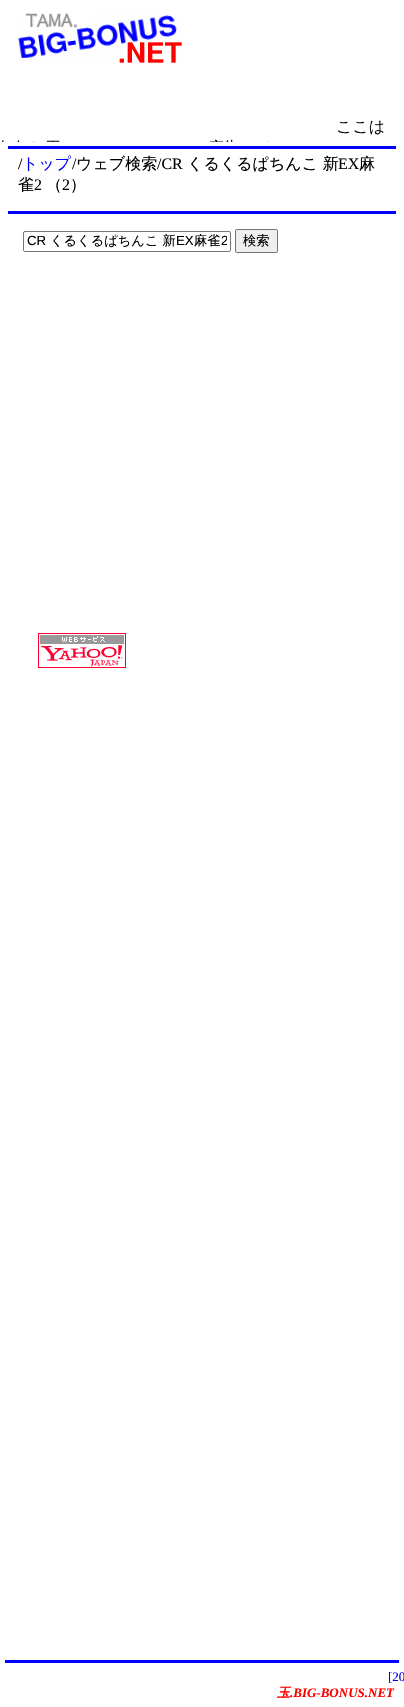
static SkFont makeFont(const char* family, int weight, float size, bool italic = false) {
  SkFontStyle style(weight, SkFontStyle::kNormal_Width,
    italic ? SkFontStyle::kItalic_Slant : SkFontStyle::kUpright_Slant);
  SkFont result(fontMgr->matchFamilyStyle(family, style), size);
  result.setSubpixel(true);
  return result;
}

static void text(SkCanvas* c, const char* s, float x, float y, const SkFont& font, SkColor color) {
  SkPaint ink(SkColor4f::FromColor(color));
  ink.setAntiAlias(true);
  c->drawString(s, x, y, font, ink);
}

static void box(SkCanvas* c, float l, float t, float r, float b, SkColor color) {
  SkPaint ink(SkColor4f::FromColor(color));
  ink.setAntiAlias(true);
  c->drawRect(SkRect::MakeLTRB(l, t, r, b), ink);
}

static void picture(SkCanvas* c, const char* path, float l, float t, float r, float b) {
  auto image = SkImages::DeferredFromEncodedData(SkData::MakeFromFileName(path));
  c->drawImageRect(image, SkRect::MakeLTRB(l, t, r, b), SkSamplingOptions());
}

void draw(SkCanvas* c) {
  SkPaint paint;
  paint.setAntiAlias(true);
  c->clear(0xffffffff);
  picture(c, "img_01.png", 18, 13, 182, 63);
  picture(c, "img_02.png", 2, 120, 384, 142);
  box(c, 8, 146, 396, 149, 0xff0000ff);
  SkFont face1 = makeFont("Liberation Serif", 400, 16);
  text(c, "/", 18, 169, face1, 0xff000000);
  SkFont face2 = makeFont("WenQuanYi Zen Hei", 500, 16);
  text(c, "トップ", 22, 169, face2, 0xff0000ee);
  text(c, "/", 72, 169, face1, 0xff000000);
  text(c, "ウェブ検索", 76, 169, face2, 0xff000000);
  text(c, "/CR", 157, 169, face1, 0xff000000);
  text(c, "くるくるぱちんこ 新", 187, 169, face2, 0xff000000);
  text(c, "EX", 338, 169, face1, 0xff000000);
  text(c, "麻", 359, 169, face2, 0xff000000);
  text(c, "雀", 18, 190, face2, 0xff000000);
  text(c, "2", 34, 190, face1, 0xff000000);
  text(c, "（", 46, 190, face2, 0xff000000);
  text(c, "2", 62, 190, face1, 0xff000000);
  text(c, "）", 70, 190, face2, 0xff000000);
  box(c, 8, 211, 396, 214, 0xff0000ff);
  paint.setStyle(SkPaint::kStroke_Style);
  paint.setStrokeWidth(1);
  paint.setColor(0xff767676);
  c->drawRoundRect(SkRect::MakeLTRB(23.5f, 231.5f, 230.5f, 251.5f), 1.5f, 1.5f, paint);
  SkFont face3 = makeFont("Liberation Sans", 400, 13.25f);
  text(c, "CR", 27, 245, face3, 0xff000000);
  SkFont face4 = makeFont("WenQuanYi Zen Hei", 500, 13.25f);
  text(c, "くるくるぱちんこ 新", 50, 245, face4, 0xff000000);
  text(c, "EX", 176, 245, face3, 0xff000000);
  text(c, "麻雀", 194, 245, face4, 0xff000000);
  c->save();
  c->clipRect(SkRect::MakeLTRB(27, 233, 227, 250));
  text(c, "2", 221, 245, face3, 0xff000000);
  c->restore();
  paint.setStyle(SkPaint::kFill_Style);
  paint.setColor(0xffefefef);
  c->drawRoundRect(SkRect::MakeLTRB(235.5f, 229.5f, 277.5f, 252.5f), 1.5f, 1.5f, paint);
  paint.setStyle(SkPaint::kStroke_Style);
  paint.setColor(0xff767676);
  c->drawRoundRect(SkRect::MakeLTRB(235.5f, 229.5f, 277.5f, 252.5f), 1.5f, 1.5f, paint);
  text(c, "検索", 243, 245, face4, 0xff000000);
  picture(c, "img_03.png", 38, 633, 126, 668);
  box(c, 5, 1660, 399, 1663, 0xff0000ff);
  SkFont face5 = makeFont("Liberation Serif", 400, 13);
  text(c, "[20", 388, 1681, face5, 0xff0000ee);
  SkFont face6 = makeFont("WenQuanYi Zen Hei", 700, 13, true);
  text(c, "玉", 277, 1697, face6, 0xffff0000);
  SkFont face7 = makeFont("Liberation Serif", 700, 13, true);
  text(c, ".BIG-BONUS.NET", 290, 1697, face7, 0xffff0000);
}
